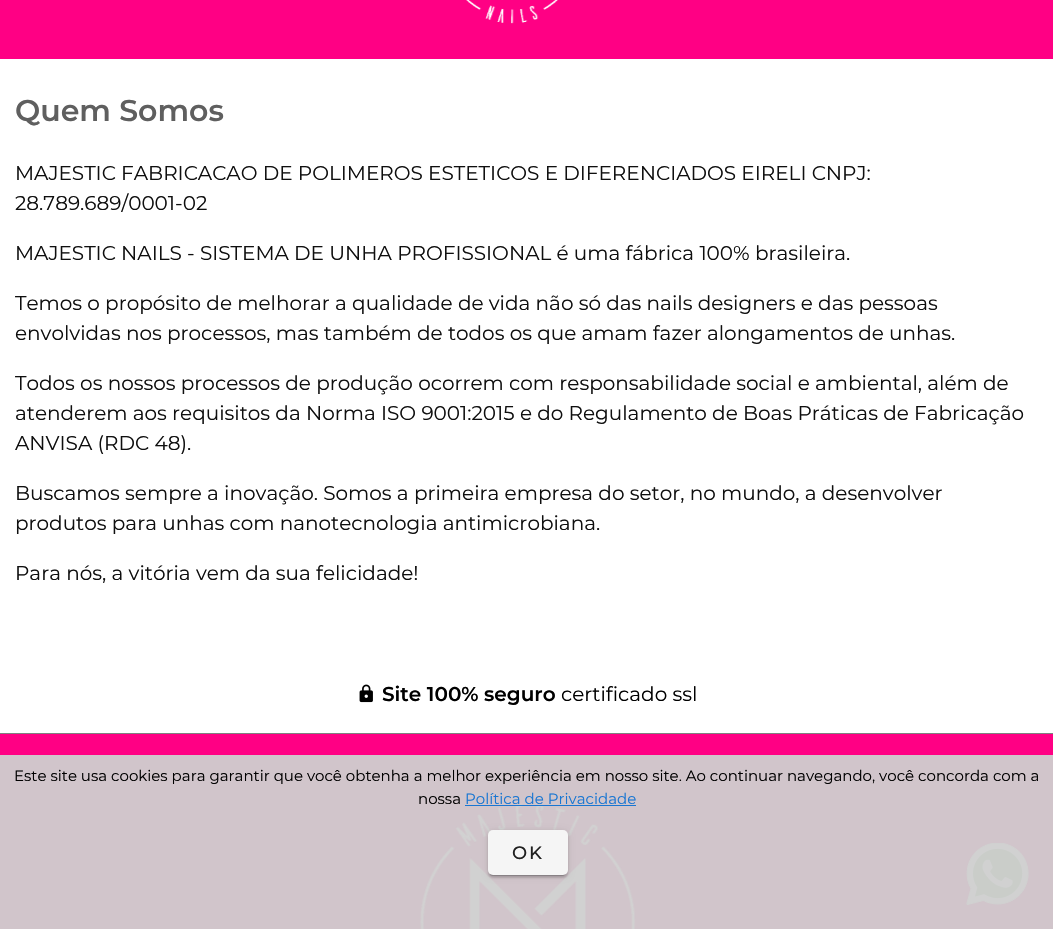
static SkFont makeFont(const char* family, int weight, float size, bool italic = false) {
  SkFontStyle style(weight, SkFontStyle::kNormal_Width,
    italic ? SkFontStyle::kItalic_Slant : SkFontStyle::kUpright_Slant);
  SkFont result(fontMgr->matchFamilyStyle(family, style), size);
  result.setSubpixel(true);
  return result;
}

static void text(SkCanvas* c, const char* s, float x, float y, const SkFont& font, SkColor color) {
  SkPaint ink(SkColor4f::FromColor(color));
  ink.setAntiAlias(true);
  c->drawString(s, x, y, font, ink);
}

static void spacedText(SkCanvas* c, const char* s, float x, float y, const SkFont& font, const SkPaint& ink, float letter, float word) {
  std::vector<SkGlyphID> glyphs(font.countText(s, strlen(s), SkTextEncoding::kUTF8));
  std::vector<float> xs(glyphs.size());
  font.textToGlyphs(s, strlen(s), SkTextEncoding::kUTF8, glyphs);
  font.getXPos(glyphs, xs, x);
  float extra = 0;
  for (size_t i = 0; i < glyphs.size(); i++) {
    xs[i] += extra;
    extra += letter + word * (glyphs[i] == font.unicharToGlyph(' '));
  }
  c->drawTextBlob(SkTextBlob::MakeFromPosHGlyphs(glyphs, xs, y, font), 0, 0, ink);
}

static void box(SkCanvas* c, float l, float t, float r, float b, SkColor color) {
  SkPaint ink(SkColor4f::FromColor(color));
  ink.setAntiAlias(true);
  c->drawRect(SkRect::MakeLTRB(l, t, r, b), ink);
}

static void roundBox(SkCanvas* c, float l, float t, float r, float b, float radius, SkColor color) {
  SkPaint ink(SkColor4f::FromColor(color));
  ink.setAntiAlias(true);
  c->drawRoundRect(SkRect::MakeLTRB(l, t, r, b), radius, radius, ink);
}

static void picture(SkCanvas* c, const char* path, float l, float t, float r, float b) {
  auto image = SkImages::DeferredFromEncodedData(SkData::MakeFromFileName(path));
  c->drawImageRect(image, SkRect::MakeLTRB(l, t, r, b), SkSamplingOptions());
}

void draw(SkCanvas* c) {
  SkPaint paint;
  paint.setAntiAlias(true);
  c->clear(0xffffffff);
  box(c, 0, 0, 1053, 59, 0xffff0084);
  picture(c, "img_01.png", 466, 0, 558, 24);
  SkFont face1 = makeFont("Montserrat", 600, 30);
  text(c, "Quem Somos", 15, 121, face1, 0xff5f5f5f);
  SkFont face2 = makeFont("Montserrat", 400, 20);
  text(c, "MAJESTIC FABRICACAO DE POLIMEROS ESTETICOS E DIFERENCIADOS EIRELI CNPJ:", 15, 180, face2, 0xff0f0f0f);
  text(c, "28.789.689/0001-02", 15, 210, face2, 0xff0f0f0f);
  text(c, "MAJESTIC NAILS - SISTEMA DE UNHA PROFISSIONAL é uma fábrica 100% brasileira.", 15, 260, face2, 0xff0f0f0f);
  text(c, "Temos o propósito de melhorar a qualidade de vida não só das nails designers e das pessoas", 15, 310, face2, 0xff0f0f0f);
  text(c, "envolvidas nos processos, mas também de todos os que amam fazer alongamentos de unhas.", 15, 340, face2, 0xff0f0f0f);
  text(c, "Todos os nossos processos de produção ocorrem com responsabilidade social e ambiental, além de", 15, 390, face2, 0xff0f0f0f);
  text(c, "atenderem aos requisitos da Norma ISO 9001:2015 e do Regulamento de Boas Práticas de Fabricação", 15, 420, face2, 0xff0f0f0f);
  text(c, "ANVISA (RDC 48).", 15, 450, face2, 0xff0f0f0f);
  text(c, "Buscamos sempre a inovação. Somos a primeira empresa do setor, no mundo, a desenvolver", 15, 500, face2, 0xff0f0f0f);
  text(c, "produtos para unhas com nanotecnologia antimicrobiana.", 15, 530, face2, 0xff0f0f0f);
  text(c, "Para nós, a vitória vem da sua felicidade!", 15, 580, face2, 0xff0f0f0f);
  picture(c, "img_02.png", 359, 684, 373, 703);
  SkFont face3 = makeFont("Montserrat", 600, 20);
  text(c, "Site 100% seguro", 382, 701, face3, 0xff000000);
  text(c, "certificado ssl", 561, 701, face2, 0xff000000);
  box(c, 0, 734, 1053, 755, 0xffff0084);
  box(c, 0, 755, 1053, 929, 0xffd1c5cb);
  box(c, 0, 733, 1053, 734, 0xff808080);
  picture(c, "img_03.png", 420, 803, 636, 929);
  SkFont face4 = makeFont("Montserrat", 400, 15);
  text(c, "Este site usa cookies para garantir que você obtenha a melhor experiência em nosso site. Ao continuar navegando, você concorda com a", 14, 781, face4, 0xff000000);
  text(c, "nossa", 418, 804, face4, 0xff000000);
  text(c, "Política de Privacidade", 465, 804, face4, 0xff1976d2);
  box(c, 465, 805, 636, 806, 0xff1976d2);
  paint.setColor(0x1f000000);
  paint.setMaskFilter(SkMaskFilter::MakeBlur(kNormal_SkBlurStyle, 3));
  c->drawRoundRect(SkRect::MakeLTRB(488, 831, 568, 876), 5, 5, paint);
  paint.setMaskFilter(nullptr);
  paint.setColor(0x24000000);
  paint.setMaskFilter(SkMaskFilter::MakeBlur(kNormal_SkBlurStyle, 1));
  c->drawRoundRect(SkRect::MakeLTRB(488, 833, 568, 878), 5, 5, paint);
  paint.setMaskFilter(nullptr);
  paint.setColor(0x33000000);
  paint.setMaskFilter(SkMaskFilter::MakeBlur(kNormal_SkBlurStyle, 0.5f));
  c->drawRoundRect(SkRect::MakeLTRB(490, 836, 565, 876), 2.5f, 2.5f, paint);
  paint.setMaskFilter(nullptr);
  roundBox(c, 488, 830, 568, 875, 5, 0xfff5f5f5);
  SkFont face5 = makeFont("Montserrat", 500, 18);
  paint.setColor(0xff202020);
  spacedText(c, "OK", 512, 859, face5, paint, 2, 0);
  picture(c, "img_04.png", 966, 843, 1029, 905);
}
